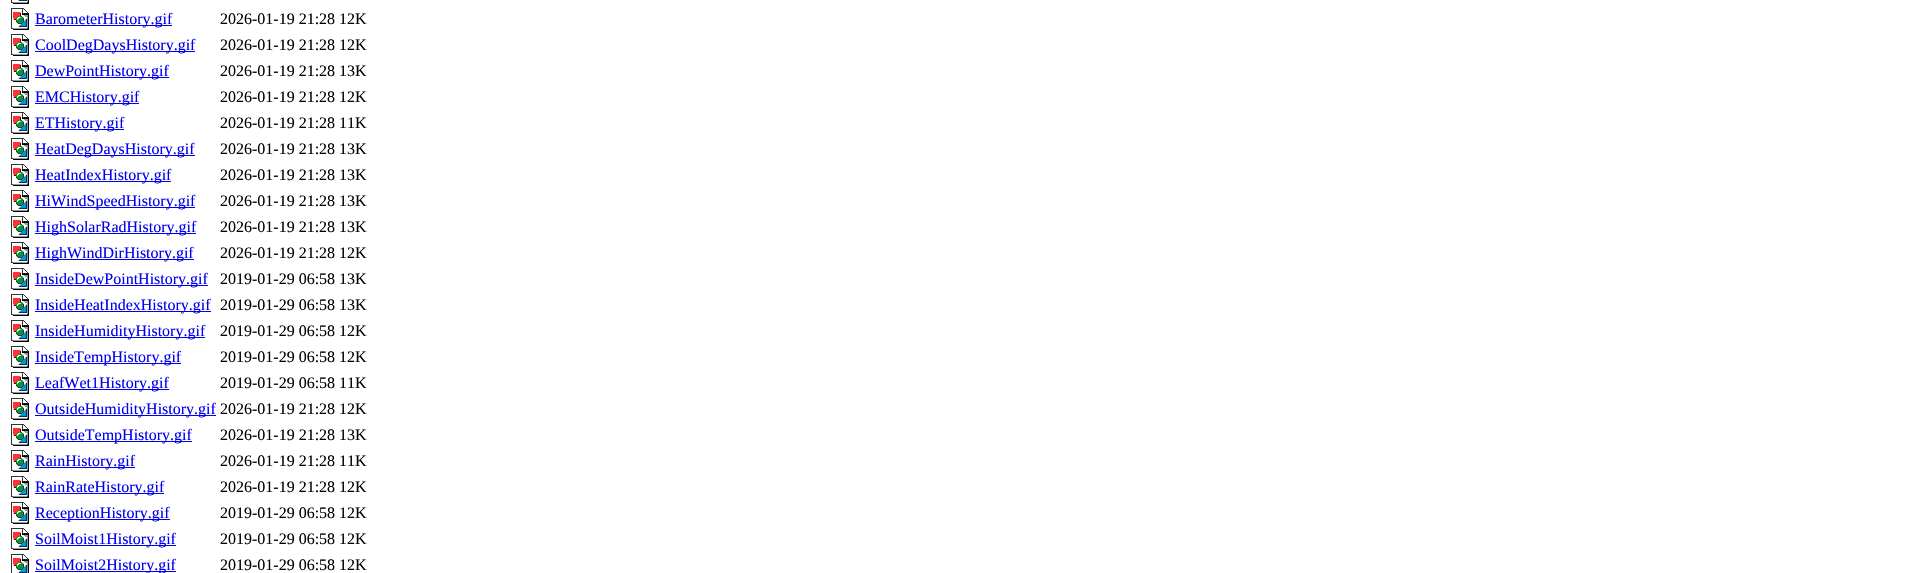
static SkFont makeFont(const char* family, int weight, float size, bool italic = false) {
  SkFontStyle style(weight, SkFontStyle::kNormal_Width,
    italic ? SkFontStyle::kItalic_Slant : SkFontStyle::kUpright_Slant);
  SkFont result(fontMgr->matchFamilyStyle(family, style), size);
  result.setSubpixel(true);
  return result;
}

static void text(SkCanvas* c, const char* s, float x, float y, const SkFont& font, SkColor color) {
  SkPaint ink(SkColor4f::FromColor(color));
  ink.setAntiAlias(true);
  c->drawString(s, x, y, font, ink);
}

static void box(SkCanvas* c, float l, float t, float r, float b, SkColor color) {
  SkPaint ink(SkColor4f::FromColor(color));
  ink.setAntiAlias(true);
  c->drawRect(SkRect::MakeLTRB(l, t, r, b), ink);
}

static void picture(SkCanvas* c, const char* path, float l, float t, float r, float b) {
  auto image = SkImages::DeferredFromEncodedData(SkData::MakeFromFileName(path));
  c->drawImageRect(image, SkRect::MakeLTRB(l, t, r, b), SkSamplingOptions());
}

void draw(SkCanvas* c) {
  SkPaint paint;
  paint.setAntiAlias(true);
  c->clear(0xffffffff);
  picture(c, "img_01.png", 11, 0, 29, 4);
  picture(c, "img_02.png", 11, 8, 29, 30);
  box(c, 35, 25, 172, 26, 0xff0000ee);
  SkFont face1 = makeFont("Liberation Serif", 400, 16);
  text(c, "BarometerHistory.gif", 35, 24, face1, 0xff0000ee);
  text(c, "2026-01-19 21:28 12K", 220, 24, face1, 0xff000000);
  picture(c, "img_02.png", 11, 34, 29, 56);
  box(c, 35, 51, 195, 52, 0xff0000ee);
  text(c, "CoolDegDaysHistory.gif", 35, 50, face1, 0xff0000ee);
  text(c, "2026-01-19 21:28 12K", 220, 50, face1, 0xff000000);
  picture(c, "img_02.png", 11, 60, 29, 82);
  box(c, 35, 77, 169, 78, 0xff0000ee);
  text(c, "DewPointHistory.gif", 35, 76, face1, 0xff0000ee);
  text(c, "2026-01-19 21:28 13K", 220, 76, face1, 0xff000000);
  picture(c, "img_02.png", 11, 86, 29, 108);
  box(c, 35, 103, 139, 104, 0xff0000ee);
  text(c, "EMCHistory.gif", 35, 102, face1, 0xff0000ee);
  text(c, "2026-01-19 21:28 12K", 220, 102, face1, 0xff000000);
  picture(c, "img_02.png", 11, 112, 29, 134);
  box(c, 35, 129, 124, 130, 0xff0000ee);
  text(c, "ETHistory.gif", 35, 128, face1, 0xff0000ee);
  text(c, "2026-01-19 21:28 11K", 220, 128, face1, 0xff000000);
  picture(c, "img_02.png", 11, 138, 29, 160);
  box(c, 35, 155, 195, 156, 0xff0000ee);
  text(c, "HeatDegDaysHistory.gif", 35, 154, face1, 0xff0000ee);
  text(c, "2026-01-19 21:28 13K", 220, 154, face1, 0xff000000);
  picture(c, "img_02.png", 11, 164, 29, 186);
  box(c, 35, 181, 171, 182, 0xff0000ee);
  text(c, "HeatIndexHistory.gif", 35, 180, face1, 0xff0000ee);
  text(c, "2026-01-19 21:28 13K", 220, 180, face1, 0xff000000);
  picture(c, "img_02.png", 11, 190, 29, 212);
  box(c, 35, 207, 195, 208, 0xff0000ee);
  text(c, "HiWindSpeedHistory.gif", 35, 206, face1, 0xff0000ee);
  text(c, "2026-01-19 21:28 13K", 220, 206, face1, 0xff000000);
  picture(c, "img_02.png", 11, 216, 29, 238);
  box(c, 35, 233, 196, 234, 0xff0000ee);
  text(c, "HighSolarRadHistory.gif", 35, 232, face1, 0xff0000ee);
  text(c, "2026-01-19 21:28 13K", 220, 232, face1, 0xff000000);
  picture(c, "img_02.png", 11, 242, 29, 264);
  box(c, 35, 259, 194, 260, 0xff0000ee);
  text(c, "HighWindDirHistory.gif", 35, 258, face1, 0xff0000ee);
  text(c, "2026-01-19 21:28 12K", 220, 258, face1, 0xff000000);
  picture(c, "img_02.png", 11, 268, 29, 290);
  box(c, 35, 285, 208, 286, 0xff0000ee);
  text(c, "InsideDewPointHistory.gif", 35, 284, face1, 0xff0000ee);
  text(c, "2019-01-29 06:58 13K", 220, 284, face1, 0xff000000);
  picture(c, "img_02.png", 11, 294, 29, 316);
  box(c, 35, 311, 211, 312, 0xff0000ee);
  text(c, "InsideHeatIndexHistory.gif", 35, 310, face1, 0xff0000ee);
  text(c, "2019-01-29 06:58 13K", 220, 310, face1, 0xff000000);
  picture(c, "img_02.png", 11, 320, 29, 342);
  box(c, 35, 337, 205, 338, 0xff0000ee);
  text(c, "InsideHumidityHistory.gif", 35, 336, face1, 0xff0000ee);
  text(c, "2019-01-29 06:58 12K", 220, 336, face1, 0xff000000);
  picture(c, "img_02.png", 11, 346, 29, 368);
  box(c, 35, 363, 181, 364, 0xff0000ee);
  text(c, "InsideTempHistory.gif", 35, 362, face1, 0xff0000ee);
  text(c, "2019-01-29 06:58 12K", 220, 362, face1, 0xff000000);
  picture(c, "img_02.png", 11, 372, 29, 394);
  box(c, 35, 389, 169, 390, 0xff0000ee);
  text(c, "LeafWet1History.gif", 35, 388, face1, 0xff0000ee);
  text(c, "2019-01-29 06:58 11K", 220, 388, face1, 0xff000000);
  picture(c, "img_02.png", 11, 398, 29, 420);
  box(c, 35, 415, 216, 416, 0xff0000ee);
  text(c, "OutsideHumidityHistory.gif", 35, 414, face1, 0xff0000ee);
  text(c, "2026-01-19 21:28 12K", 220, 414, face1, 0xff000000);
  picture(c, "img_02.png", 11, 424, 29, 446);
  box(c, 35, 441, 192, 442, 0xff0000ee);
  text(c, "OutsideTempHistory.gif", 35, 440, face1, 0xff0000ee);
  text(c, "2026-01-19 21:28 13K", 220, 440, face1, 0xff000000);
  picture(c, "img_02.png", 11, 450, 29, 472);
  box(c, 35, 467, 135, 468, 0xff0000ee);
  text(c, "RainHistory.gif", 35, 466, face1, 0xff0000ee);
  text(c, "2026-01-19 21:28 11K", 220, 466, face1, 0xff000000);
  picture(c, "img_02.png", 11, 476, 29, 498);
  box(c, 35, 493, 164, 494, 0xff0000ee);
  text(c, "RainRateHistory.gif", 35, 492, face1, 0xff0000ee);
  text(c, "2026-01-19 21:28 12K", 220, 492, face1, 0xff000000);
  picture(c, "img_02.png", 11, 502, 29, 524);
  box(c, 35, 519, 170, 520, 0xff0000ee);
  text(c, "ReceptionHistory.gif", 35, 518, face1, 0xff0000ee);
  text(c, "2019-01-29 06:58 12K", 220, 518, face1, 0xff000000);
  picture(c, "img_02.png", 11, 528, 29, 550);
  box(c, 35, 545, 176, 546, 0xff0000ee);
  text(c, "SoilMoist1History.gif", 35, 544, face1, 0xff0000ee);
  text(c, "2019-01-29 06:58 12K", 220, 544, face1, 0xff000000);
  picture(c, "img_03.png", 11, 554, 29, 573);
  box(c, 35, 571, 176, 572, 0xff0000ee);
  text(c, "SoilMoist2History.gif", 35, 570, face1, 0xff0000ee);
  text(c, "2019-01-29 06:58 12K", 220, 570, face1, 0xff000000);
}
